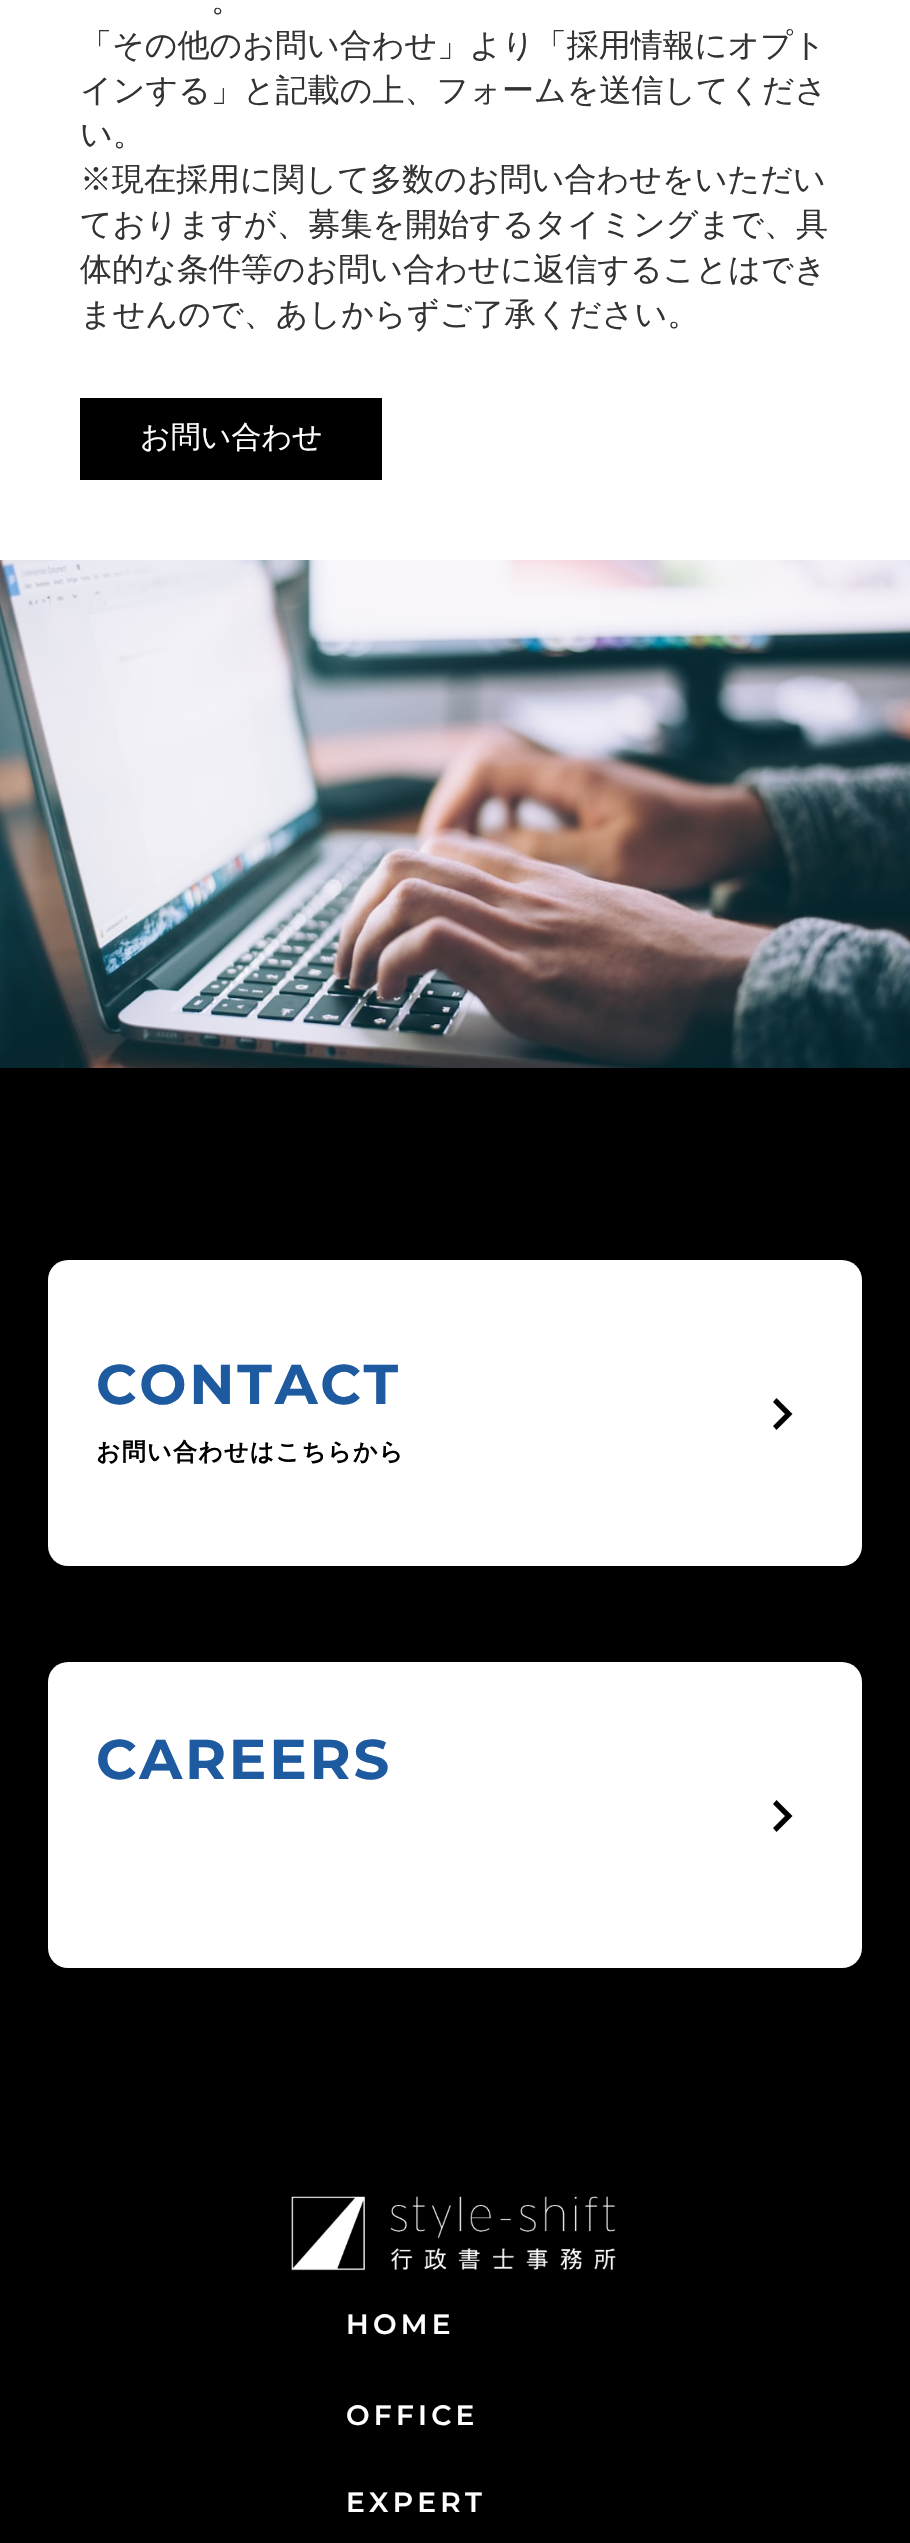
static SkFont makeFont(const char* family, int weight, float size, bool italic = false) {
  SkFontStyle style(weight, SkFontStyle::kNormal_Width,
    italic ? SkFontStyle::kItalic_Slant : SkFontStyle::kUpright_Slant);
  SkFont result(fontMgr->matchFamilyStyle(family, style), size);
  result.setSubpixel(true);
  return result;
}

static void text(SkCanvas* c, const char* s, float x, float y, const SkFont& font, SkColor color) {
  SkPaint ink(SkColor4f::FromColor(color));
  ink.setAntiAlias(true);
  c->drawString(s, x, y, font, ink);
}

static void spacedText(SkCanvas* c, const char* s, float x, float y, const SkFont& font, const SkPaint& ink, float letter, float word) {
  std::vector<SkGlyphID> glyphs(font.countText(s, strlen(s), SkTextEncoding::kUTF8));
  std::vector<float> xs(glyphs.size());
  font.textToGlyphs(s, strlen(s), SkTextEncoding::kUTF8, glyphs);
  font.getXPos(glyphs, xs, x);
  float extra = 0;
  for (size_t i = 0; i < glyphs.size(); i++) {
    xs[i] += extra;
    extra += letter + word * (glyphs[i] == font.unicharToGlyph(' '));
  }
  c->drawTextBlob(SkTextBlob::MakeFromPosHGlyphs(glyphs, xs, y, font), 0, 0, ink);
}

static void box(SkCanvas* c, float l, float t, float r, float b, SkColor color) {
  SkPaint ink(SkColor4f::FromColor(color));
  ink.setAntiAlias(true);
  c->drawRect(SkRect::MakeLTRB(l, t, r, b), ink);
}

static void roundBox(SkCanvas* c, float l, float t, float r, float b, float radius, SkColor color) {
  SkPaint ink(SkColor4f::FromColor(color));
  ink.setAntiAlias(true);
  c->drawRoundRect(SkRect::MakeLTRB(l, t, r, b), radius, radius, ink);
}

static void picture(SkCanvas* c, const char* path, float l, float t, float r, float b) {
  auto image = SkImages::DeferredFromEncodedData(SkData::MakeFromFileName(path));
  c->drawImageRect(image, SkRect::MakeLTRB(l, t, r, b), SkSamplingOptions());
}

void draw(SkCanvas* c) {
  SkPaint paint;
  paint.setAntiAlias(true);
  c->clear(0xffffffff);
  SkFont face1 = makeFont("WenQuanYi Zen Hei", 500, 32);
  text(c, "。", 211, 11, face1, 0xff333333);
  text(c, "「その他のお問い合わせ」より「採用情報にオプト", 80, 56, face1, 0xff333333);
  text(c, "インする」と記載の上、フォームを送信してくださ", 80, 101, face1, 0xff333333);
  text(c, "い。", 80, 145, face1, 0xff333333);
  text(c, "※現在採用に関して多数のお問い合わせをいただい", 80, 190, face1, 0xff333333);
  text(c, "ておりますが、募集を開始するタイミングまで、具", 80, 235, face1, 0xff333333);
  text(c, "体的な条件等のお問い合わせに返信することはでき", 80, 280, face1, 0xff333333);
  text(c, "ませんので、あしからずご了承ください。", 80, 325, face1, 0xff333333);
  box(c, 80, 398, 382, 480, 0xff000000);
  SkFont face2 = makeFont("WenQuanYi Zen Hei", 500, 30);
  text(c, "お問い合わせ", 140, 447, face2, 0xffffffff);
  picture(c, "img_01.png", 0, 560, 910, 1068);
  box(c, 0, 1068, 910, 2543, 0xff000000);
  roundBox(c, 48, 1260, 862, 1566, 20, 0xffffffff);
  SkFont face3 = makeFont("Montserrat", 700, 56);
  paint.setColor(0xff1e5a9f);
  spacedText(c, "CONTACT", 96, 1404, face3, paint, 2.75f, 0);
  SkFont face4 = makeFont("WenQuanYi Zen Hei", 700, 24);
  paint.setColor(0xff000000);
  spacedText(c, "お問い合わせはこちらから", 96, 1460, face4, paint, 1.25f, 0);
  c->drawPath(SkPathBuilder().moveTo(773, 1426).lineTo(785, 1414).lineTo(773, 1402).lineTo(776.5f, 1398).lineTo(792.5f, 1414).lineTo(776.5f, 1430).close().detach(), paint);
  roundBox(c, 48, 1662, 862, 1968, 20, 0xffffffff);
  paint.setColor(0xff1e5a9f);
  spacedText(c, "CAREERS", 96, 1779, face3, paint, 2.75f, 0);
  paint.setColor(0xff000000);
  c->drawPath(SkPathBuilder().moveTo(773, 1828).lineTo(785, 1816).lineTo(773, 1804).lineTo(776.5f, 1800).lineTo(792.5f, 1816).lineTo(776.5f, 1832).close().detach(), paint);
  picture(c, "img_02.png", 291, 2196, 616, 2271);
  SkFont face5 = makeFont("Montserrat", 600, 28);
  paint.setColor(0xffffffff);
  spacedText(c, "HOME", 346, 2334, face5, paint, 4.25f, 0);
  spacedText(c, "OFFICE", 346, 2425, face5, paint, 4.25f, 0);
  spacedText(c, "EXPERT", 346, 2512, face5, paint, 4.25f, 0);
}
